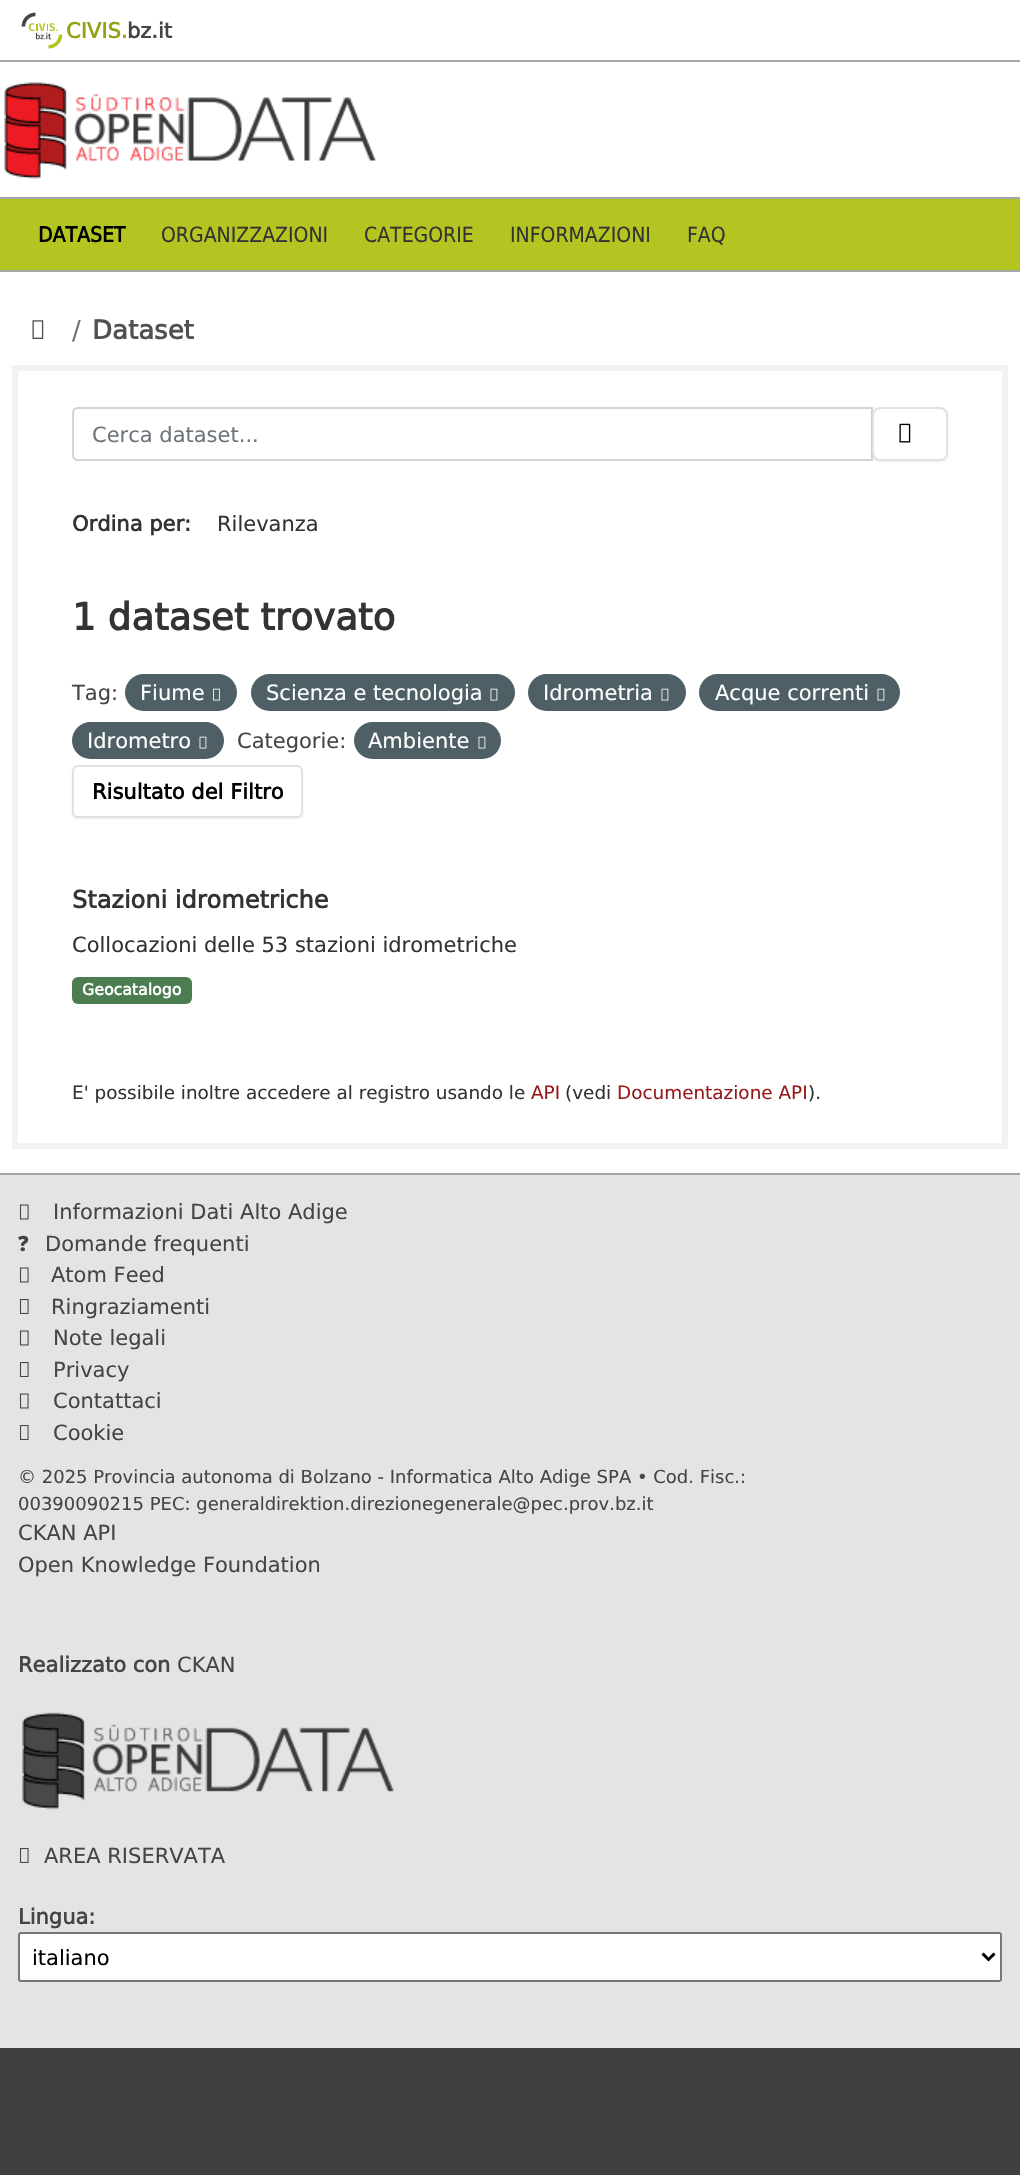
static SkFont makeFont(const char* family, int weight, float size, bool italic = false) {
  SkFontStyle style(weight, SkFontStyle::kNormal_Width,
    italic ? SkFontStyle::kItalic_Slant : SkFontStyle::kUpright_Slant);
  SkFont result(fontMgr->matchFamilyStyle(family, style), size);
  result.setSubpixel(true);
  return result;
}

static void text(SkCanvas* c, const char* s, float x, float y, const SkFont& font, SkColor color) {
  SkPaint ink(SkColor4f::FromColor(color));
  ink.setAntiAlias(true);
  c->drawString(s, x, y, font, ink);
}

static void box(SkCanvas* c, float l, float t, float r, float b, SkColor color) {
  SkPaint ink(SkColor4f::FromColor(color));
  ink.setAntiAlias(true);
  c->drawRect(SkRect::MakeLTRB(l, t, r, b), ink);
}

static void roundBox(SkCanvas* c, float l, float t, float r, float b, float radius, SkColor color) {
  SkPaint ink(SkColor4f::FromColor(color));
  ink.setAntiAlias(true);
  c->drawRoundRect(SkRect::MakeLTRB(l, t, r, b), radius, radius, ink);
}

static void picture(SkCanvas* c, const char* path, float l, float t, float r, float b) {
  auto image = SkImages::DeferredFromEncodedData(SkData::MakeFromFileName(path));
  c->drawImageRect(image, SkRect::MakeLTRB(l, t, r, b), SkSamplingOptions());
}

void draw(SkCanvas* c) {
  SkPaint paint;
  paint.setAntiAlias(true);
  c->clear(0xff404041);
  box(c, 0, 0, 1020, 60, 0xffffffff);
  box(c, 0, 60, 1020, 62, 0xffa4a5a5);
  picture(c, "img_01.png", 21, 12, 63, 49);
  SkFont face1 = makeFont("DejaVu Sans", 700, 21);
  text(c, "CIVIS.", 66, 38, face1, 0xff94a212);
  text(c, "bz.it", 127, 38, face1, 0xff454544);
  box(c, 0, 62, 1020, 197, 0xffffffff);
  picture(c, "img_02.png", 4, 82, 377, 179);
  box(c, 0, 199, 1020, 270, 0xffb4c420);
  box(c, 0, 197, 1020, 199, 0xffa4a5a5);
  box(c, 0, 270, 1020, 272, 0xffa4a5a5);
  SkFont face2 = makeFont("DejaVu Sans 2", 700, 21);
  text(c, "DATASET", 38, 242, face2, 0xff000000);
  SkFont face3 = makeFont("DejaVu Sans 2", 400, 21);
  text(c, "ORGANIZZAZIONI", 161, 242, face3, 0xff333333);
  text(c, "CATEGORIE", 364, 242, face3, 0xff333333);
  text(c, "INFORMAZIONI", 510, 242, face3, 0xff333333);
  text(c, "FAQ", 687, 242, face3, 0xff333333);
  box(c, 0, 272, 1020, 1173, 0xffffffff);
  picture(c, "img_03.png", 32, 320, 44, 339);
  SkFont face4 = makeFont("DejaVu Sans", 400, 26);
  text(c, "/", 72, 339, face4, 0xff6c757d);
  SkFont face5 = makeFont("DejaVu Sans", 700, 26);
  text(c, "Dataset", 92, 339, face5, 0xff505050);
  paint.setStyle(SkPaint::kStroke_Style);
  paint.setStrokeWidth(6);
  paint.setColor(0xfff2f2f2);
  c->drawRect(SkRect::MakeLTRB(15, 368, 1005, 1146), paint);
  paint.setStrokeWidth(2);
  paint.setColor(0xffced4da);
  c->drawPath(SkPathBuilder().moveTo(78, 408).lineTo(872, 408).lineTo(872, 460).lineTo(78, 460).cubicTo(75, 460, 73, 458, 73, 455).lineTo(73, 413).cubicTo(73, 410, 75, 408, 78, 408).close().detach(), paint);
  SkFont face6 = makeFont("DejaVu Sans", 400, 21);
  text(c, "Cerca dataset...", 92, 442, face6, 0xff6c757d);
  paint.setStyle(SkPaint::kFill_Style);
  paint.setColor(0x12000000);
  paint.setMaskFilter(SkMaskFilter::MakeBlur(kNormal_SkBlurStyle, 1));
  c->drawRoundRect(SkRect::MakeLTRB(872, 408, 948, 462), 8, 8, paint);
  paint.setMaskFilter(nullptr);
  paint.setColor(0xffffffff);
  c->drawRoundRect(SkRect::MakeLTRB(873, 408, 947, 460), 7, 7, paint);
  paint.setStyle(SkPaint::kStroke_Style);
  paint.setColor(0xffdee2e6);
  c->drawRoundRect(SkRect::MakeLTRB(873, 408, 947, 460), 7, 7, paint);
  picture(c, "img_04.png", 899, 423, 911, 443);
  text(c, "Ordina per:", 72, 531, face1, 0xff333333);
  text(c, "Rilevanza", 217, 531, face6, 0xff333333);
  SkFont face7 = makeFont("DejaVu Sans", 700, 37.25f);
  text(c, "1 dataset trovato", 72, 630, face7, 0xff333333);
  text(c, "Tag:", 72, 700, face6, 0xff454544);
  roundBox(c, 125, 674, 237, 711, 18.5f, 0xff4e5f65);
  text(c, "Fiume", 140, 700, face6, 0xffffffff);
  picture(c, "img_05.png", 213, 688, 220, 701);
  roundBox(c, 251, 674, 515, 711, 18.5f, 0xff4e5f65);
  text(c, "Scienza e tecnologia", 266, 700, face6, 0xffffffff);
  picture(c, "img_06.png", 490, 688, 498, 701);
  roundBox(c, 528, 674, 686, 711, 18.5f, 0xff4e5f65);
  text(c, "Idrometria", 543, 700, face6, 0xffffffff);
  picture(c, "img_06.png", 661, 688, 669, 701);
  roundBox(c, 699, 674, 900, 711, 18.5f, 0xff4e5f65);
  text(c, "Acque correnti", 715, 700, face6, 0xffffffff);
  picture(c, "img_06.png", 877, 688, 885, 701);
  roundBox(c, 72, 722, 224, 759, 18.5f, 0xff4e5f65);
  text(c, "Idrometro", 87, 748, face6, 0xffffffff);
  picture(c, "img_06.png", 199, 736, 207, 749);
  text(c, "Categorie:", 237, 748, face6, 0xff454544);
  roundBox(c, 354, 722, 501, 759, 18.5f, 0xff4e5f65);
  text(c, "Ambiente", 368, 748, face6, 0xffffffff);
  picture(c, "img_06.png", 478, 736, 486, 749);
  paint.setStyle(SkPaint::kFill_Style);
  paint.setColor(0x12000000);
  paint.setMaskFilter(SkMaskFilter::MakeBlur(kNormal_SkBlurStyle, 1));
  c->drawRoundRect(SkRect::MakeLTRB(72, 767, 303, 819), 6, 6, paint);
  paint.setMaskFilter(nullptr);
  paint.setColor(0xffffffff);
  c->drawRoundRect(SkRect::MakeLTRB(73, 766, 302, 817), 5, 5, paint);
  paint.setStyle(SkPaint::kStroke_Style);
  paint.setColor(0xffdee2e6);
  c->drawRoundRect(SkRect::MakeLTRB(73, 766, 302, 817), 5, 5, paint);
  text(c, "Risultato del Filtro", 92, 799, face1, 0xff000000);
  SkFont face8 = makeFont("DejaVu Sans", 700, 24);
  text(c, "Stazioni idrometriche", 72, 908, face8, 0xff333333);
  text(c, "Collocazioni delle 53 stazioni idrometriche", 72, 952, face6, 0xff333333);
  roundBox(c, 72, 977, 192, 1004, 6, 0xff4b7d51);
  SkFont face9 = makeFont("DejaVu Sans", 700, 15.75f);
  text(c, "Geocatalogo", 82, 995, face9, 0xffffffff);
  SkFont face10 = makeFont("DejaVu Sans", 400, 18.4f);
  text(c, "E' possibile inoltre accedere al registro usando le", 72, 1099, face10, 0xff333333);
  text(c, "API", 531, 1099, face10, 0xff96191a);
  text(c, "(vedi", 565, 1099, face10, 0xff333333);
  text(c, "Documentazione API", 617, 1099, face10, 0xff96191a);
  text(c, ").", 808, 1099, face10, 0xff333333);
  box(c, 0, 1175, 1020, 2048, 0xffe4e4e5);
  box(c, 0, 1173, 1020, 1175, 0xffa4a5a5);
  picture(c, "img_07.png", 19, 1204, 29, 1220);
  text(c, "Informazioni Dati Alto Adige", 53, 1219, face6, 0xff454544);
  SkFont face11 = makeFont("Noto Sans", 900, 21);
  text(c, "?", 18, 1251, face11, 0xff454544);
  text(c, "Domande frequenti", 45, 1251, face6, 0xff454544);
  picture(c, "img_07.png", 19, 1267, 29, 1283);
  text(c, "Atom Feed", 51, 1282, face6, 0xff454544);
  picture(c, "img_08.png", 19, 1299, 29, 1314);
  text(c, "Ringraziamenti", 51, 1314, face6, 0xff454544);
  picture(c, "img_07.png", 19, 1330, 29, 1346);
  text(c, "Note legali", 53, 1345, face6, 0xff454544);
  picture(c, "img_08.png", 19, 1362, 29, 1377);
  text(c, "Privacy", 53, 1377, face6, 0xff454544);
  picture(c, "img_07.png", 19, 1393, 29, 1409);
  text(c, "Contattaci", 53, 1408, face6, 0xff454544);
  picture(c, "img_08.png", 19, 1425, 29, 1440);
  text(c, "Cookie", 53, 1440, face6, 0xff454544);
  SkFont face12 = makeFont("DejaVu Sans", 400, 18);
  text(c, "© 2025 Provincia autonoma di Bolzano - Informatica Alto Adige SPA • Cod. Fisc.:", 18, 1483, face12, 0xff454544);
  text(c, "00390090215 PEC: generaldirektion.direzionegenerale@pec.prov.bz.it", 18, 1510, face12, 0xff454544);
  text(c, "CKAN API", 18, 1540, face6, 0xff454544);
  text(c, "Open Knowledge Foundation", 18, 1572, face6, 0xff454544);
  text(c, "Realizzato con", 18, 1672, face1, 0xff454544);
  text(c, "CKAN", 177, 1672, face6, 0xff454544);
  picture(c, "img_09.png", 22, 1712, 395, 1810);
  picture(c, "img_08.png", 19, 1848, 29, 1863);
  text(c, "AREA RISERVATA", 44, 1863, face6, 0xff454544);
  text(c, "Lingua:", 18, 1924, face1, 0xff454544);
  paint.setStyle(SkPaint::kFill_Style);
  paint.setColor(0xffffffff);
  c->drawRoundRect(SkRect::MakeLTRB(19, 1933, 1001, 1981), 2, 2, paint);
  paint.setStyle(SkPaint::kStroke_Style);
  paint.setColor(0xff767676);
  c->drawRoundRect(SkRect::MakeLTRB(19, 1933, 1001, 1981), 2, 2, paint);
  paint.setStrokeWidth(3);
  paint.setColor(0xff000000);
  c->drawPath(SkPathBuilder().moveTo(982.5f, 1953.5f).lineTo(988.5f, 1959.5f).lineTo(994.5f, 1953.5f).detach(), paint);
  text(c, "italiano", 32, 1965, face6, 0xff000000);
}
